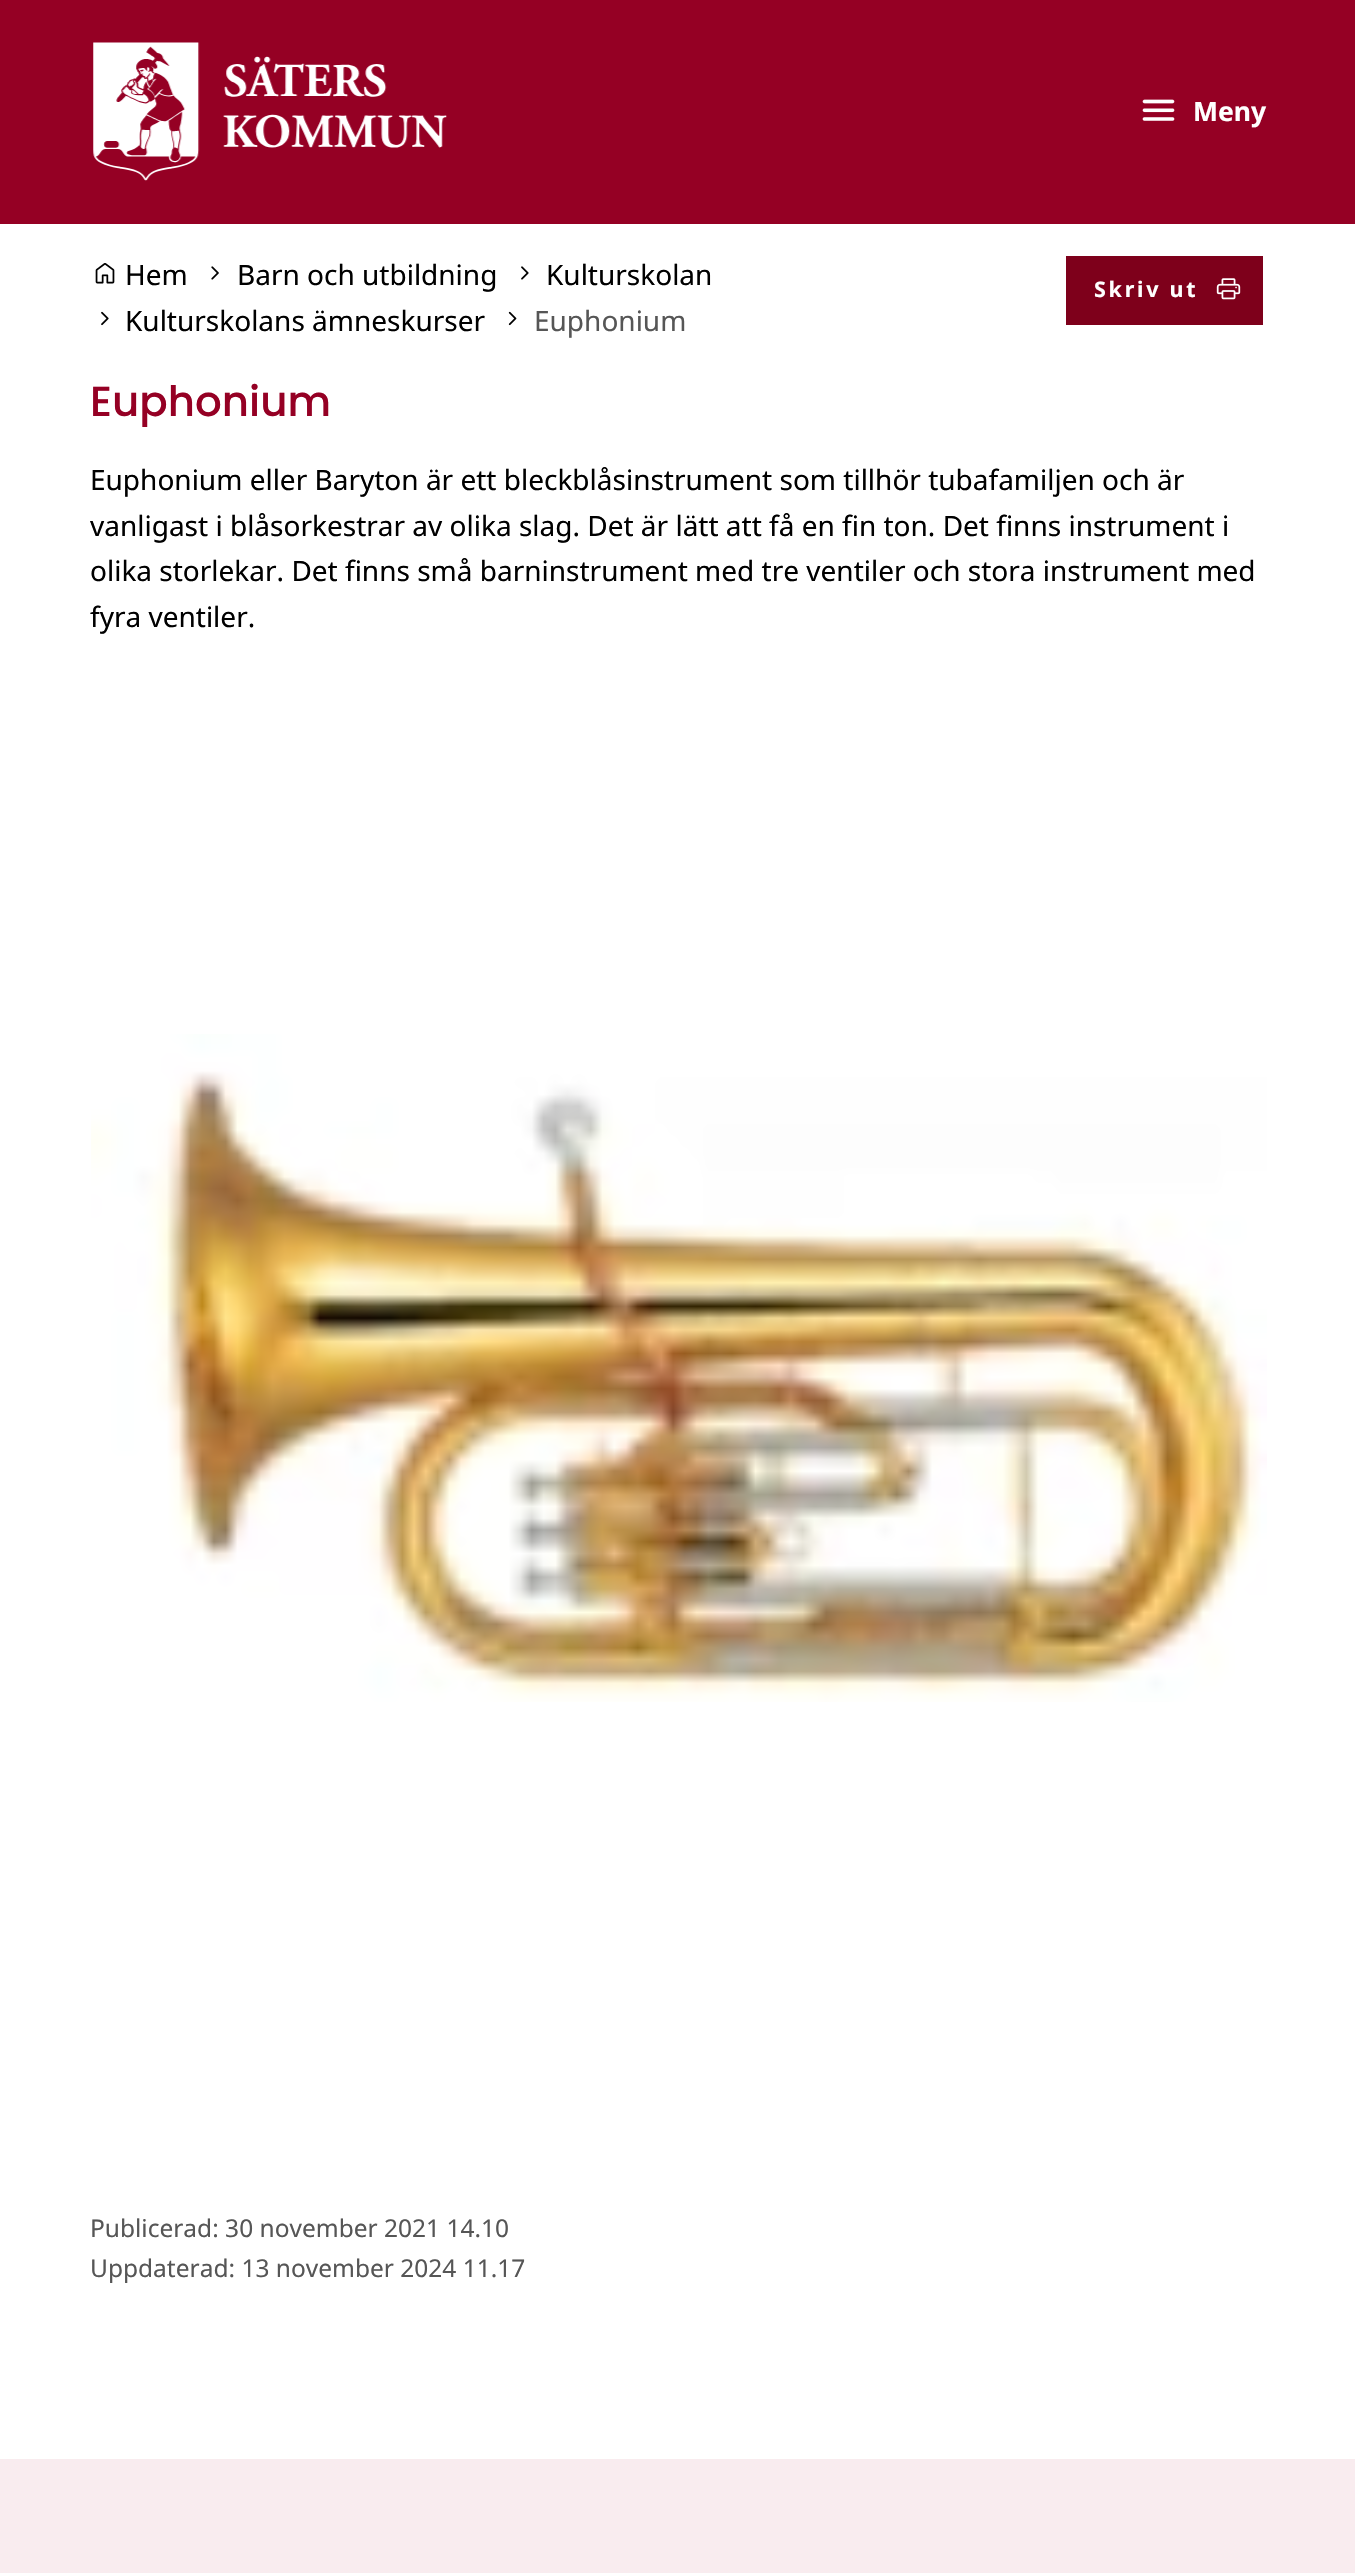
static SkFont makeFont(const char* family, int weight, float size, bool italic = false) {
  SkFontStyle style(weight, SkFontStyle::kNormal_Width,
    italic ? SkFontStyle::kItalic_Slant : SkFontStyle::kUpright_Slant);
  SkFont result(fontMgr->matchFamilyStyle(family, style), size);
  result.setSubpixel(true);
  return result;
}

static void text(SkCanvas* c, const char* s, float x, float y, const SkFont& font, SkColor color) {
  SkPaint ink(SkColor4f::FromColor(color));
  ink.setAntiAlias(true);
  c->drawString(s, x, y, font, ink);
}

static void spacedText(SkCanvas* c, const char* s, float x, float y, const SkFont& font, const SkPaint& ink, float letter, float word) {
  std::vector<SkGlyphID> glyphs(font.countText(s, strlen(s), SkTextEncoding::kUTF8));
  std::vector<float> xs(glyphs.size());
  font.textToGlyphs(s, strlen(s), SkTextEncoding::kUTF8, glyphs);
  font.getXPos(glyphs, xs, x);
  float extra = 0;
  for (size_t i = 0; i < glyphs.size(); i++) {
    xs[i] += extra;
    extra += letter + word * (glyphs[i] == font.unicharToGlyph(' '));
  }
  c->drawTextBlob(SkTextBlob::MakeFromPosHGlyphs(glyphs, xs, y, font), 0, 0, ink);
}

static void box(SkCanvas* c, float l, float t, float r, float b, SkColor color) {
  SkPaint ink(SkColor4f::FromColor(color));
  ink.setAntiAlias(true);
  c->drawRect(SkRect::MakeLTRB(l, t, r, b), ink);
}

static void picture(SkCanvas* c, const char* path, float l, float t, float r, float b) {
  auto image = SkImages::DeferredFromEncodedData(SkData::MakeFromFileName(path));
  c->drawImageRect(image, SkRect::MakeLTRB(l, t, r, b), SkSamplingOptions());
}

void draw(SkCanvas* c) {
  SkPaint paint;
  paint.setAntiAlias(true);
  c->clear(0xffffffff);
  box(c, 0, 0, 1355, 224, 0xff950024);
  picture(c, "img_01.png", 93, 42, 447, 181);
  picture(c, "img_02.png", 1142, 99, 1175, 121);
  SkFont face1 = makeFont("Noto Sans", 700, 26.5f);
  text(c, "Meny", 1193, 121, face1, 0xffffffff);
  picture(c, "img_03.png", 95, 263, 115, 284);
  SkFont face2 = makeFont("Noto Sans", 400, 28);
  text(c, "Hem", 125, 285, face2, 0xff000000);
  picture(c, "img_04.png", 211, 266, 219, 280);
  text(c, "Barn och utbildning", 237, 285, face2, 0xff000000);
  picture(c, "img_05.png", 521, 266, 529, 280);
  text(c, "Kulturskolan", 546, 285, face2, 0xff000000);
  picture(c, "img_06.png", 101, 311, 109, 326);
  text(c, "Kulturskolans ämneskurser", 125, 331, face2, 0xff000000);
  picture(c, "img_07.png", 508, 311, 517, 326);
  text(c, "Euphonium", 534, 331, face2, 0xff565656);
  box(c, 1066, 256, 1263, 325, 0xff7e001b);
  SkFont face3 = makeFont("Noto Sans", 700, 21.5f);
  paint.setColor(0xffffffff);
  spacedText(c, "Skriv ut", 1094, 297, face3, paint, 2.75f, 0);
  picture(c, "img_08.png", 1216, 278, 1241, 300);
  SkFont face4 = makeFont("Poppins", 500, 42);
  text(c, "Euphonium", 90, 416, face4, 0xff950024);
  text(c, "Euphonium eller Baryton är ett bleckblåsinstrument som tillhör tubafamiljen och är", 90, 490, face2, 0xff000000);
  text(c, "vanligast i blåsorkestrar av olika slag. Det är lätt att få en fin ton. Det finns instrument i", 90, 536, face2, 0xff000000);
  text(c, "olika storlekar. Det finns små barninstrument med tre ventiler och stora instrument med", 90, 581, face2, 0xff000000);
  text(c, "fyra ventiler.", 90, 627, face2, 0xff000000);
  picture(c, "img_09.png", 91, 1034, 1267, 1702);
  SkFont face5 = makeFont("Noto Sans", 400, 24.5f);
  text(c, "Publicerad: 30 november 2021 14.10", 90, 2237, face5, 0xff565656);
  text(c, "Uppdaterad: 13 november 2024 11.17", 90, 2277, face5, 0xff565656);
  box(c, 0, 2459, 1355, 2573, 0xfff9ecef);
}
